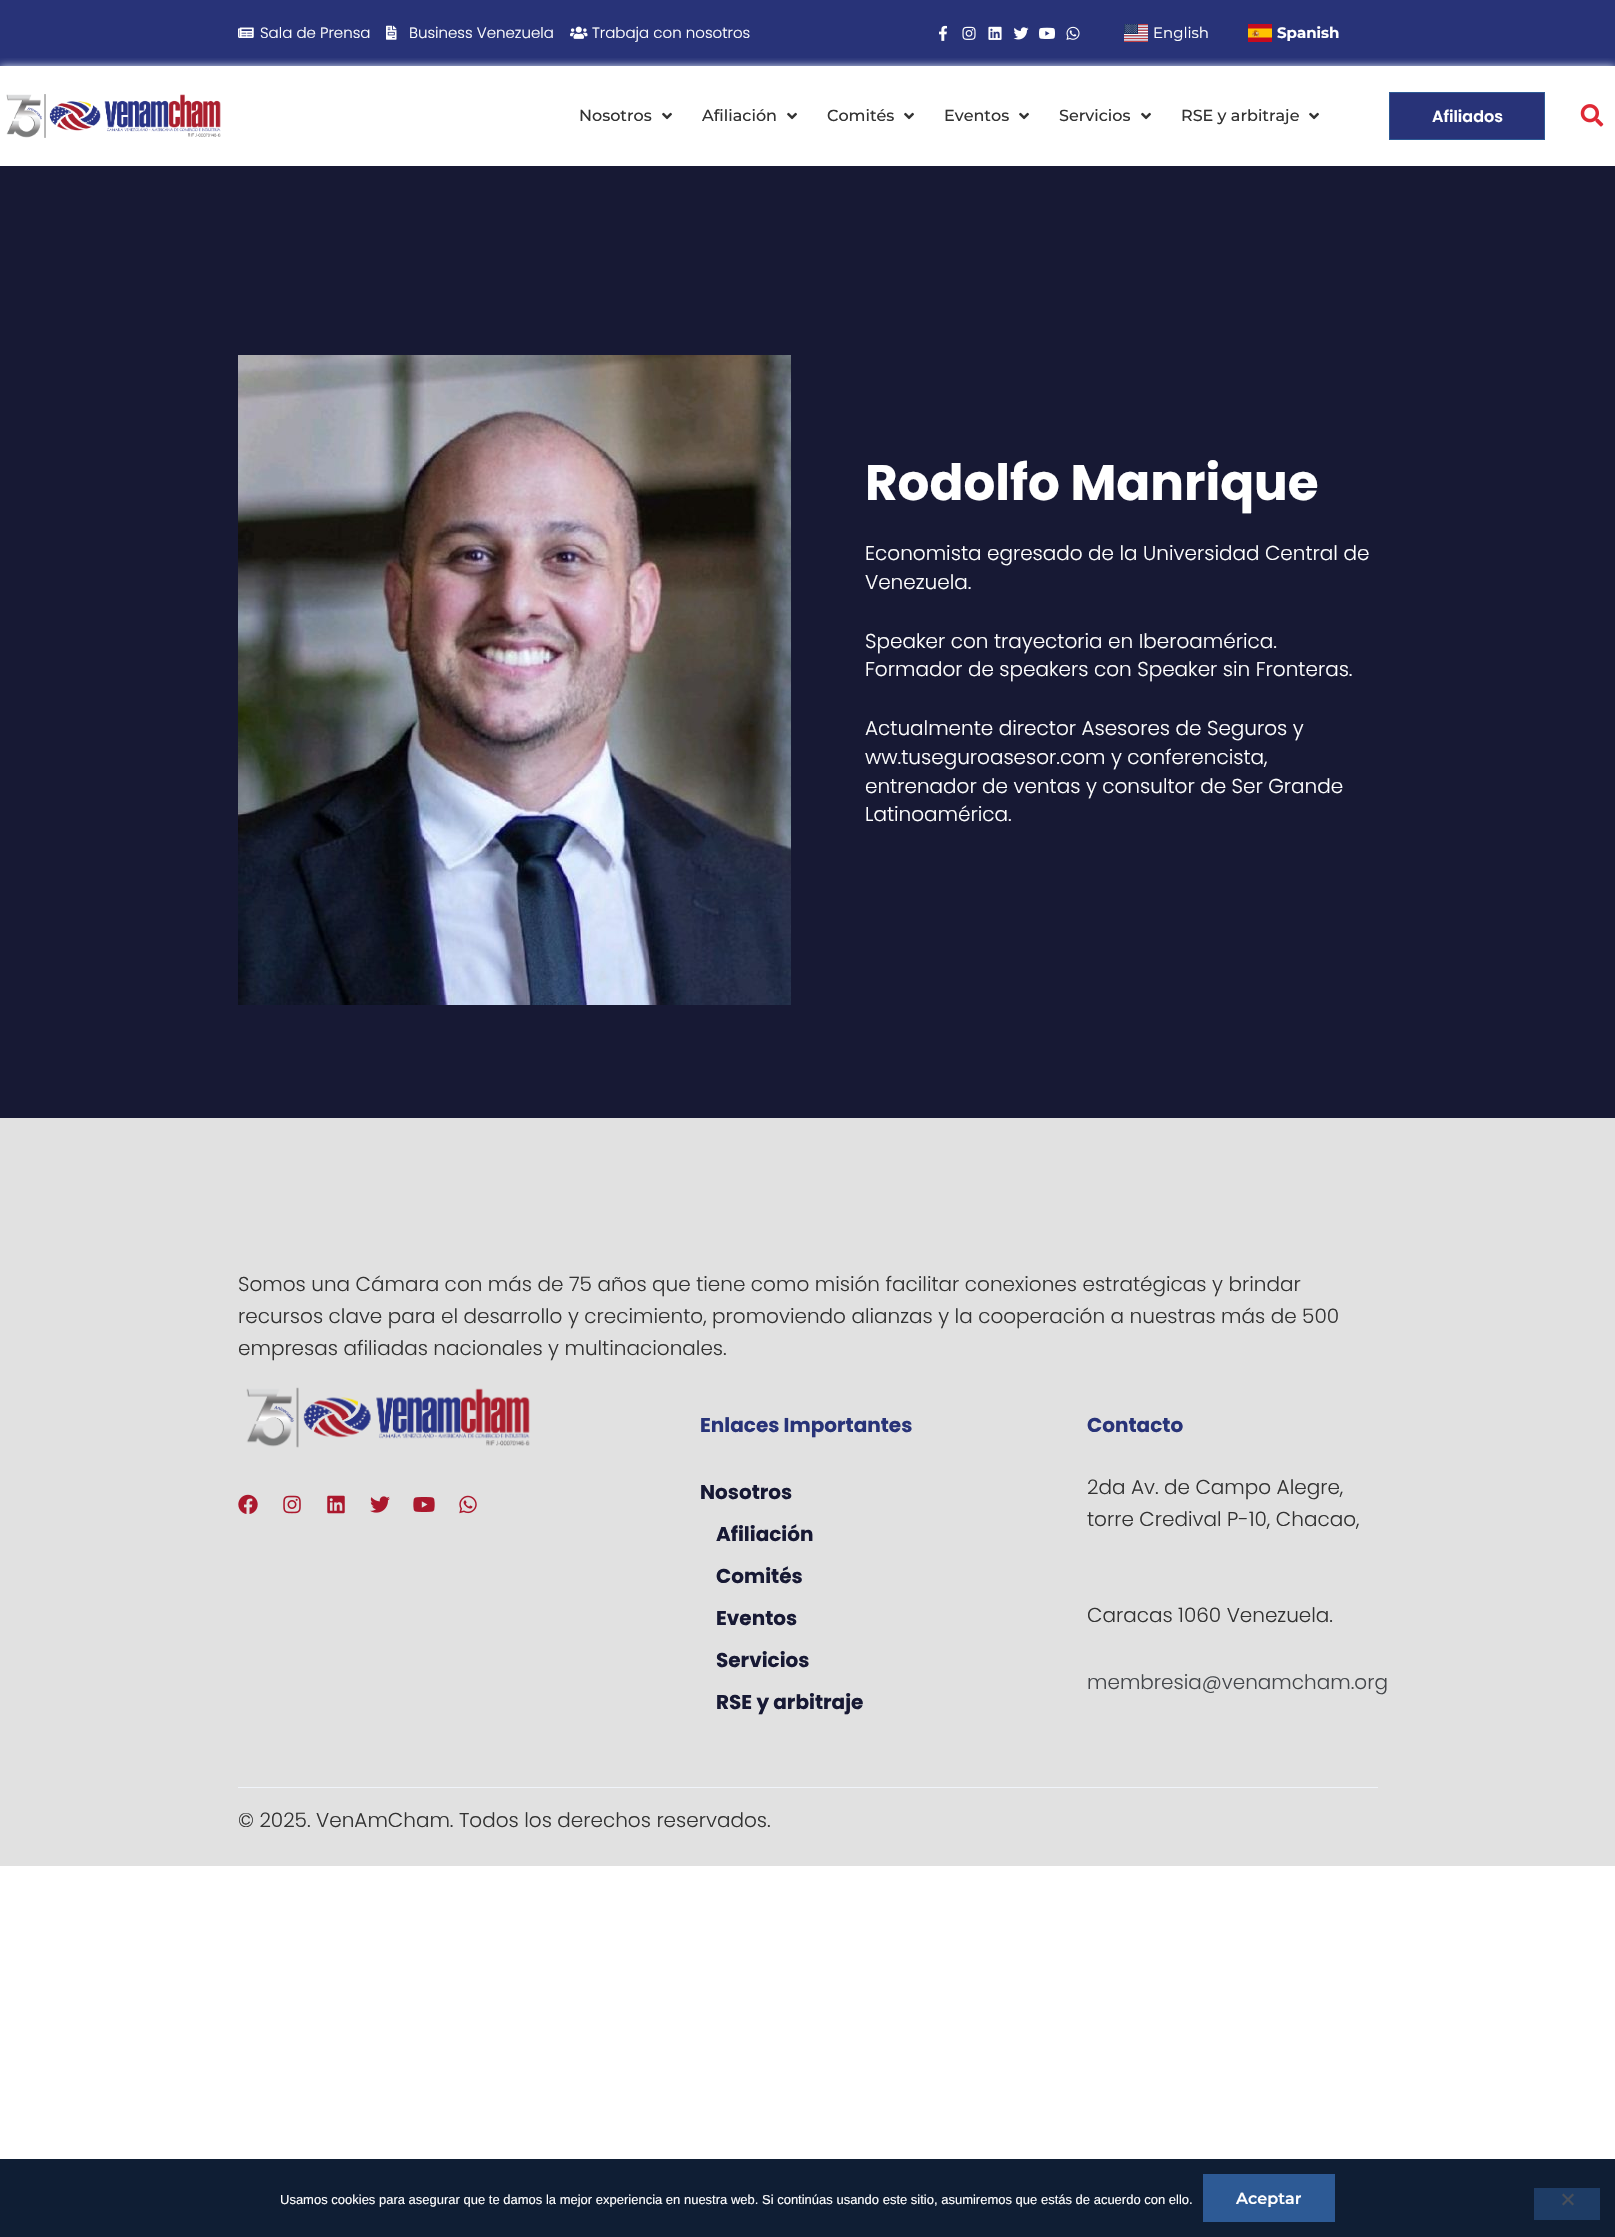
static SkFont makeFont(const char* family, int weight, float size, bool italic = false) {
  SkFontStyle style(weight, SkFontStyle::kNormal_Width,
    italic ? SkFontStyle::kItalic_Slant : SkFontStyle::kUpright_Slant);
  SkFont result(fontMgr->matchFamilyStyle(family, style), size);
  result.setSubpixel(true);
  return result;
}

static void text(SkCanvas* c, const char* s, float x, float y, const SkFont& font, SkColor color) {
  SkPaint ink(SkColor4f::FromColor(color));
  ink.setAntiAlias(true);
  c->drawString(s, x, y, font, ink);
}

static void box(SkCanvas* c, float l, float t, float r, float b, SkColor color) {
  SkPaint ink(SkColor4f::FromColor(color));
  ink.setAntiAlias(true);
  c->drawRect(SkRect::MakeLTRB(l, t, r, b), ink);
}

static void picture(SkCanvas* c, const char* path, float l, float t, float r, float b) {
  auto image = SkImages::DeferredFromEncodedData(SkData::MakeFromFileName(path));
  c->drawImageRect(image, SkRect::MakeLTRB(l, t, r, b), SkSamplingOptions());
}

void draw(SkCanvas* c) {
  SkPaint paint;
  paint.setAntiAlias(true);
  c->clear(0xffffffff);
  box(c, 0, 0, 1615, 66, 0xff283378);
  picture(c, "img_01.png", 238, 27, 254, 38);
  SkFont face1 = makeFont("Poppins", 300, 15);
  text(c, "Sala de Prensa", 260, 38, face1, 0xffffffff);
  picture(c, "img_02.png", 386, 25, 397, 40);
  text(c, "Business Venezuela", 409, 38, face1, 0xffffffff);
  picture(c, "img_03.png", 570, 26, 588, 39);
  text(c, "Trabaja con nosotros", 592, 38, face1, 0xffffffff);
  picture(c, "img_04.png", 939, 25, 947, 41);
  picture(c, "img_05.png", 962, 26, 976, 40);
  picture(c, "img_06.png", 988, 26, 1002, 40);
  picture(c, "img_07.png", 1013, 27, 1029, 40);
  picture(c, "img_08.png", 1039, 27, 1055, 39);
  picture(c, "img_09.png", 1066, 26, 1080, 40);
  picture(c, "img_10.png", 1124, 24, 1148, 42);
  SkFont face2 = makeFont("Montserrat", 400, 15);
  text(c, "English", 1153, 38, face2, 0xffffffff);
  picture(c, "img_11.png", 1248, 24, 1272, 42);
  SkFont face3 = makeFont("Montserrat", 700, 15);
  text(c, "Spanish", 1277, 38, face3, 0xffffffff);
  c->save();
  c->clipRect(SkRect::MakeLTRB(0, 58, 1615, 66));
  paint.setColor(0xffd7e3f2);
  paint.setMaskFilter(SkMaskFilter::MakeBlur(kNormal_SkBlurStyle, 4));
  c->drawRect(SkRect::MakeLTRB(0, 66, 1615, 166), paint);
  paint.setMaskFilter(nullptr);
  c->restore();
  picture(c, "img_12.png", 6, 94, 221, 138);
  SkFont face4 = makeFont("Montserrat", 500, 16);
  text(c, "Nosotros", 579, 121, face4, 0xff333333);
  picture(c, "img_13.png", 662, 112, 672, 120);
  text(c, "Afiliación", 702, 121, face4, 0xff333333);
  picture(c, "img_13.png", 787, 112, 797, 120);
  text(c, "Comités", 827, 121, face4, 0xff333333);
  picture(c, "img_13.png", 904, 112, 914, 120);
  text(c, "Eventos", 944, 121, face4, 0xff333333);
  picture(c, "img_13.png", 1019, 112, 1029, 120);
  text(c, "Servicios", 1059, 121, face4, 0xff333333);
  picture(c, "img_13.png", 1141, 112, 1151, 120);
  text(c, "RSE y arbitraje", 1181, 121, face4, 0xff333333);
  picture(c, "img_13.png", 1309, 112, 1319, 120);
  paint.setColor(0xff283378);
  c->drawRect(SkRect::MakeLTRB(1389.5f, 92.5f, 1544.5f, 139.5f), paint);
  paint.setStyle(SkPaint::kStroke_Style);
  paint.setStrokeWidth(1);
  paint.setColor(0xff2d5a95);
  c->drawRect(SkRect::MakeLTRB(1389.5f, 92.5f, 1544.5f, 139.5f), paint);
  SkFont face5 = makeFont("Poppins", 600, 16);
  text(c, "Afiliados", 1432, 122, face5, 0xffffffff);
  picture(c, "img_14.png", 1580, 104, 1604, 127);
  box(c, 0, 166, 1615, 1118, 0xff171934);
  picture(c, "img_15.png", 238, 355, 791, 1005);
  SkFont face6 = makeFont("Poppins", 700, 50);
  text(c, "Rodolfo Manrique", 865, 500, face6, 0xffffffff);
  SkFont face7 = makeFont("Poppins", 300, 20);
  text(c, "Economista egresado de la Universidad Central de", 865, 560, face7, 0xffffffff);
  text(c, "Venezuela.", 865, 589, face7, 0xffffffff);
  text(c, "Speaker con trayectoria en Iberoamérica.", 865, 648, face7, 0xffffffff);
  text(c, "Formador de speakers con Speaker sin Fronteras.", 865, 676, face7, 0xffffffff);
  text(c, "Actualmente director Asesores de Seguros y", 865, 735, face7, 0xffffffff);
  text(c, "ww.tuseguroasesor.com y conferencista,", 865, 764, face7, 0xffffffff);
  text(c, "entrenador de ventas y consultor de Ser Grande", 865, 793, face7, 0xffffffff);
  text(c, "Latinoamérica.", 865, 821, face7, 0xffffffff);
  box(c, 0, 1118, 1615, 1866, 0xffe1e1e1);
  text(c, "Somos una Cámara con más de 75 años que tiene como misión facilitar conexiones estratégicas y brindar", 238, 1291, face7, 0xff333333);
  text(c, "recursos clave para el desarrollo y crecimiento, promoviendo alianzas y la cooperación a nuestras más de 500", 238, 1323, face7, 0xff333333);
  text(c, "empresas afiliadas nacionales y multinacionales.", 238, 1355, face7, 0xff333333);
  picture(c, "img_16.png", 246, 1387, 530, 1448);
  SkFont face8 = makeFont("Poppins", 700, 20);
  text(c, "Enlaces Importantes", 700, 1432, face8, 0xff283378);
  text(c, "Contacto", 1087, 1432, face8, 0xff283378);
  picture(c, "img_17.png", 238, 1494, 258, 1514);
  picture(c, "img_18.png", 283, 1495, 301, 1514);
  picture(c, "img_19.png", 327, 1495, 345, 1514);
  picture(c, "img_20.png", 370, 1496, 390, 1513);
  picture(c, "img_21.png", 413, 1497, 435, 1512);
  picture(c, "img_22.png", 459, 1495, 477, 1514);
  text(c, "Nosotros", 700, 1499, face8, 0xff171934);
  text(c, "Afiliación", 716, 1541, face8, 0xff171934);
  text(c, "Comités", 716, 1583, face8, 0xff171934);
  text(c, "Eventos", 716, 1625, face8, 0xff171934);
  text(c, "Servicios", 716, 1667, face8, 0xff171934);
  text(c, "RSE y arbitraje", 716, 1709, face8, 0xff171934);
  text(c, "2da Av. de Campo Alegre,", 1087, 1494, face7, 0xff333333);
  text(c, "torre Credival P-10, Chacao,", 1087, 1526, face7, 0xff333333);
  text(c, "Caracas 1060 Venezuela.", 1087, 1622, face7, 0xff333333);
  text(c, "membresia@venamcham.org", 1087, 1689, face7, 0xff44474b);
  box(c, 238, 1787, 1378, 1788, 0xfff0f4fa);
  text(c, "© 2025. VenAmCham. Todos los derechos reservados.", 238, 1827, face7, 0xff333333);
  box(c, 0, 2159, 1615, 2237, 0xff0f1e34);
  SkFont face9 = makeFont("Liberation Sans", 400, 13);
  text(c, "Usamos cookies para asegurar que te damos la mejor experiencia en nuestra web. Si continúas usando este sitio, asumiremos que estás de acuerdo con ello.", 280, 2204, face9, 0xffffffff);
  box(c, 1203, 2174, 1335, 2222, 0xff2d5a95);
  SkFont face10 = makeFont("Montserrat", 600, 16);
  text(c, "Aceptar", 1236, 2204, face10, 0xffffffff);
  box(c, 1534, 2188, 1600, 2220, 0xff1e3c65);
  paint.setStyle(SkPaint::kFill_Style);
  paint.setColor(0xff484f5a);
  c->drawPath(SkPathBuilder().moveTo(1572.5f, 2193.5f).lineTo(1574, 2195).lineTo(1563.5f, 2205.5f).lineTo(1562, 2204).close().detach(), paint);
  c->drawPath(SkPathBuilder().moveTo(1562, 2195).lineTo(1563.5f, 2193.5f).lineTo(1574, 2204).lineTo(1572.5f, 2205.5f).close().detach(), paint);
}
